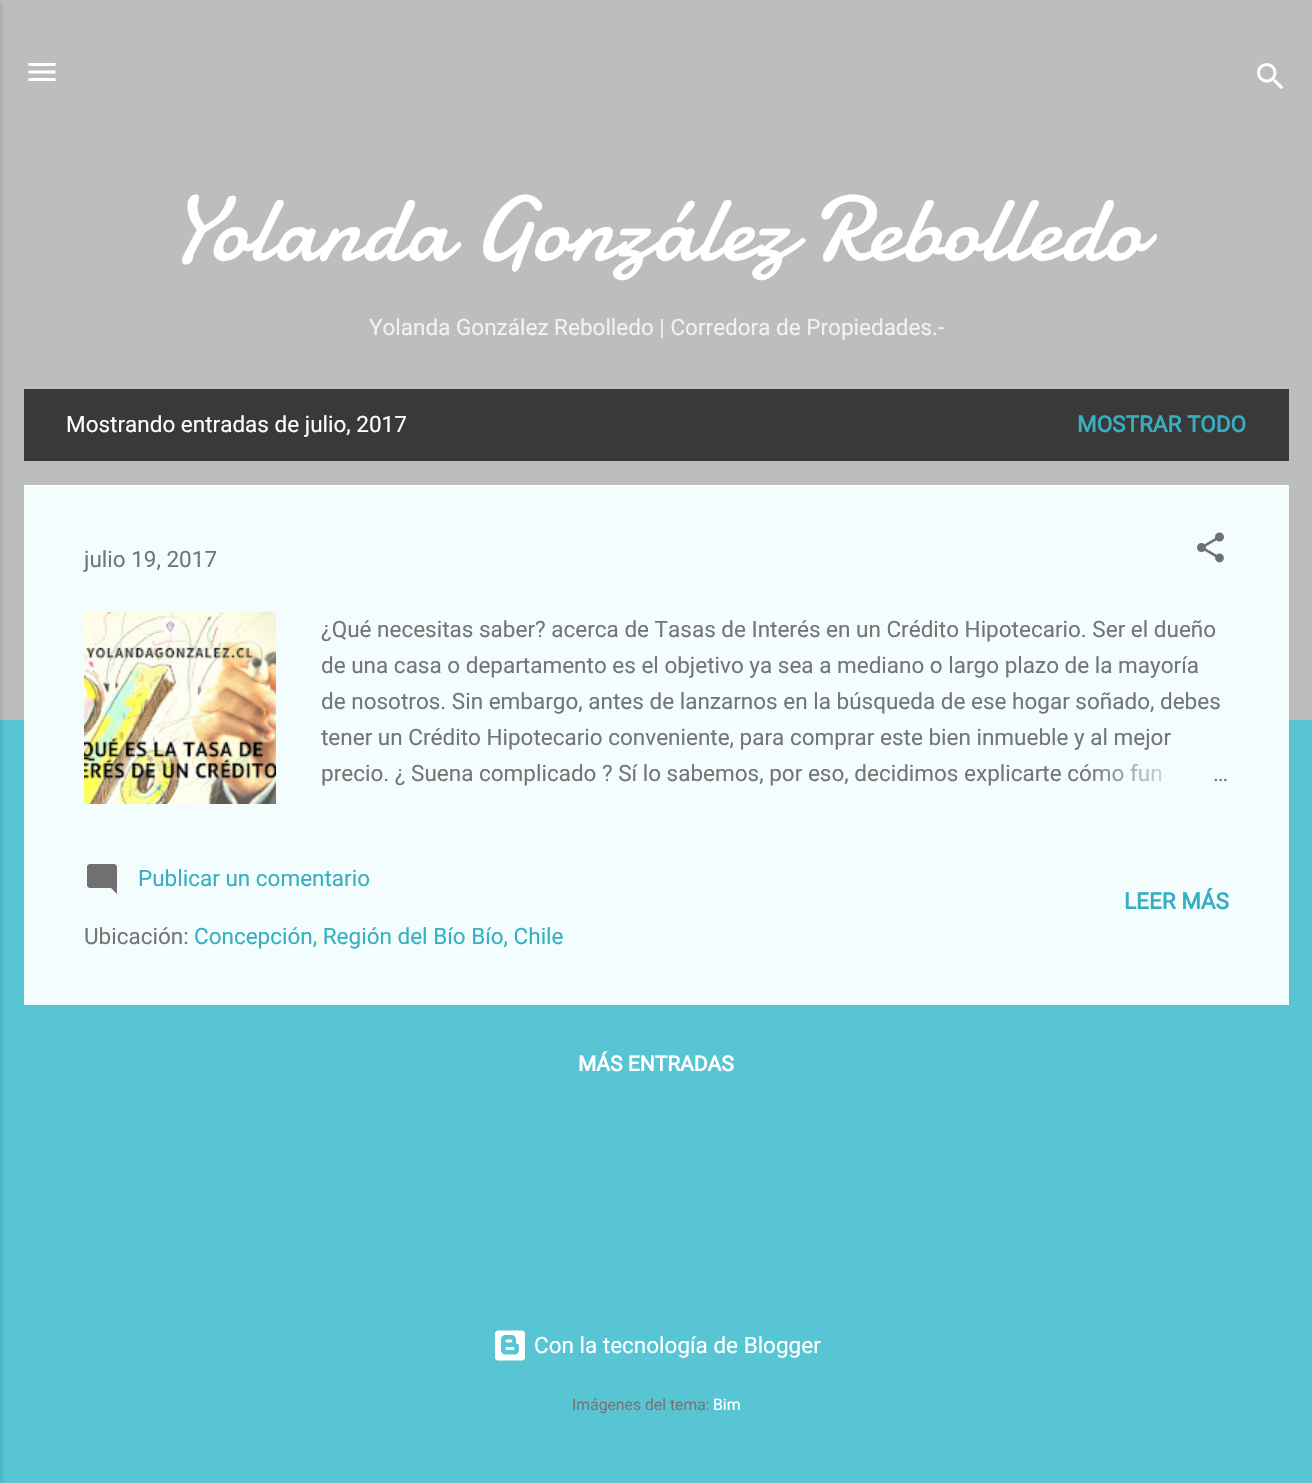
static SkFont makeFont(const char* family, int weight, float size, bool italic = false) {
  SkFontStyle style(weight, SkFontStyle::kNormal_Width,
    italic ? SkFontStyle::kItalic_Slant : SkFontStyle::kUpright_Slant);
  SkFont result(fontMgr->matchFamilyStyle(family, style), size);
  result.setSubpixel(true);
  return result;
}

static void text(SkCanvas* c, const char* s, float x, float y, const SkFont& font, SkColor color) {
  SkPaint ink(SkColor4f::FromColor(color));
  ink.setAntiAlias(true);
  c->drawString(s, x, y, font, ink);
}

static void box(SkCanvas* c, float l, float t, float r, float b, SkColor color) {
  SkPaint ink(SkColor4f::FromColor(color));
  ink.setAntiAlias(true);
  c->drawRect(SkRect::MakeLTRB(l, t, r, b), ink);
}

static void picture(SkCanvas* c, const char* path, float l, float t, float r, float b) {
  auto image = SkImages::DeferredFromEncodedData(SkData::MakeFromFileName(path));
  c->drawImageRect(image, SkRect::MakeLTRB(l, t, r, b), SkSamplingOptions());
}

void draw(SkCanvas* c) {
  SkPaint paint;
  paint.setAntiAlias(true);
  c->clear(0xff58c5d5);
  box(c, 0, 0, 1312, 720, 0xffbdbdbd);
  paint.setColor(0x1a000000);
  paint.setMaskFilter(SkMaskFilter::MakeBlur(kNormal_SkBlurStyle, 2));
  c->drawRect(SkRect::MakeLTRB(-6, 2, 2, 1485), paint);
  paint.setMaskFilter(nullptr);
  picture(c, "img_01.png", 28, 63, 56, 81);
  picture(c, "img_02.png", 1257, 63, 1283, 89);
  SkFont face1 = makeFont("Damion", 400, 93);
  text(c, "Yolanda González Rebolledo", 168, 260, face1, 0xffffffff);
  SkFont face2 = makeFont("Roboto", 400, 22.5f);
  text(c, "Yolanda González Rebolledo | Corredora de Propiedades.-", 369, 335, face2, 0xfff2f2f2);
  box(c, 24, 389, 1289, 461, 0xff393939);
  text(c, "Mostrando entradas de julio, 2017", 66, 432, face2, 0xffffffff);
  SkFont face3 = makeFont("Roboto", 700, 22.5f);
  text(c, "MOSTRAR TODO", 1077, 432, face3, 0xff37afc0);
  box(c, 24, 485, 1289, 1005, 0xfff3fdfe);
  text(c, "julio 19, 2017", 84, 567, face2, 0xff757575);
  picture(c, "img_03.png", 1197, 532, 1224, 563);
  picture(c, "img_04.png", 84, 612, 276, 804);
  text(c, "¿Qué necesitas saber? acerca de Tasas de Interés en un Crédito Hipotecario. Ser el dueño", 321, 637, face2, 0xff757575);
  text(c, "de una casa o departamento es el objetivo ya sea a mediano o largo plazo de la mayoría", 321, 673, face2, 0xff757575);
  text(c, "de nosotros. Sin embargo, antes de lanzarnos en la búsqueda de ese hogar soñado, debes", 321, 709, face2, 0xff757575);
  text(c, "tener un Crédito Hipotecario conveniente, para comprar este bien inmueble y al mejor", 321, 745, face2, 0xff757575);
  text(c, "precio. ¿ Suena complicado ? Sí lo sabemos, por eso, decidimos explicarte cómo fun", 321, 781, face2, 0xff757575);
  {
    const SkColor colors[] = {0xfff3fdfe, 0xfff3fdfe, 0x00f3fdfe};
    const float stops[] = {0, 0.2f, 1};
    const SkPoint ends[] = {{1229, 774}, {1085, 774}};
    paint.setShader(SkGradientShader::MakeLinear(ends, colors, stops, 3, SkTileMode::kClamp));
    paint.setAlpha(255);
  }
  c->drawRect(SkRect::MakeLTRB(1087, 763, 1162, 782), paint);
  text(c, "…", 1213, 781, face2, 0xff757575);
  picture(c, "img_05.png", 87, 864, 117, 894);
  text(c, "Publicar un comentario", 138, 886, face2, 0xff37afc0);
  text(c, "Ubicación:", 84, 944, face2, 0xff757575);
  text(c, "Concepción, Región del Bío Bío, Chile", 194, 944, face2, 0xff37afc0);
  text(c, "LEER MÁS", 1124, 909, face3, 0xff37afc0);
  SkFont face4 = makeFont("Roboto", 700, 21);
  text(c, "MÁS ENTRADAS", 578, 1071, face4, 0xffffffff);
  picture(c, "img_06.png", 495, 1330, 525, 1361);
  text(c, "Con la tecnología de Blogger", 534, 1353, face2, 0xffffffff);
  SkFont face5 = makeFont("Roboto", 400, 15.75f);
  text(c, "Imágenes del tema:", 572, 1410, face5, 0xff757575);
  text(c, "Bim", 713, 1410, face5, 0xffffffff);
}
